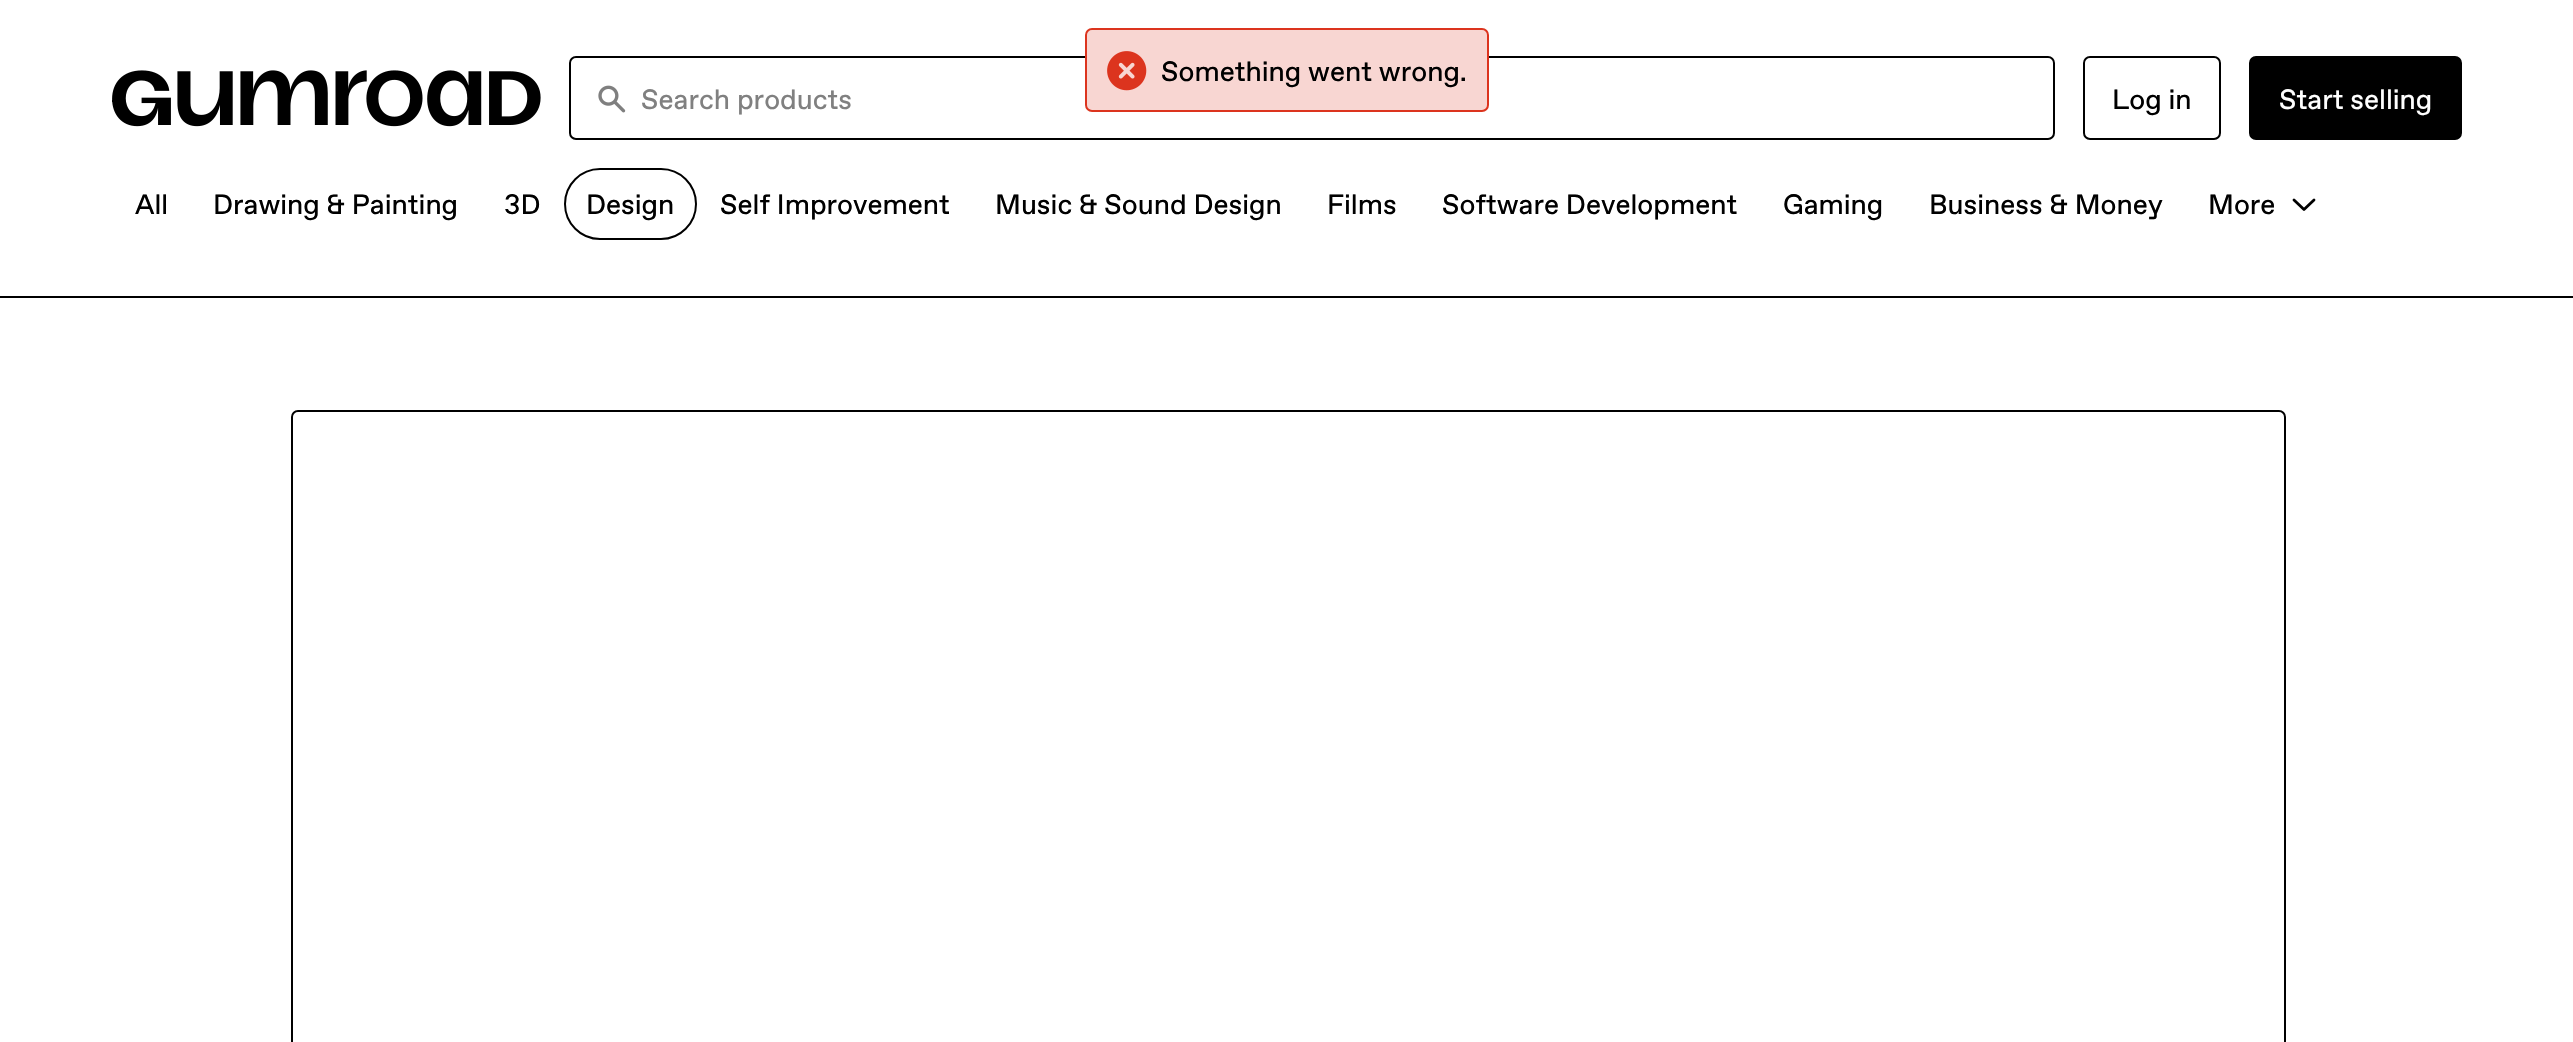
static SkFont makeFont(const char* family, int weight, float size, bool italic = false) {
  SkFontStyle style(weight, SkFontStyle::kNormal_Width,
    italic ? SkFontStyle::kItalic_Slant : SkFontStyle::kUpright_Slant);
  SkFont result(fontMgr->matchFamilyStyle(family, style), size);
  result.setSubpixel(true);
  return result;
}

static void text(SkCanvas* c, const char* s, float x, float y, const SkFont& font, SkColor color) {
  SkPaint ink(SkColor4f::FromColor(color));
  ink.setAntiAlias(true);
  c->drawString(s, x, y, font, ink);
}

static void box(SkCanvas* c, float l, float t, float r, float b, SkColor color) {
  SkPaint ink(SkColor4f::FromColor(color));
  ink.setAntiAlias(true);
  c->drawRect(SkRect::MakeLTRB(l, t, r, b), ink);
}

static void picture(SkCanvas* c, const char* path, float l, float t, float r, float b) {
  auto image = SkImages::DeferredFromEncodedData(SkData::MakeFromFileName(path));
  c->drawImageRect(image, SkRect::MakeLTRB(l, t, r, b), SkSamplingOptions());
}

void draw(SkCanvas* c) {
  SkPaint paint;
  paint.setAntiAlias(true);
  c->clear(0xffffffff);
  paint.setStyle(SkPaint::kStroke_Style);
  paint.setStrokeWidth(2);
  paint.setColor(0xff000000);
  c->drawRoundRect(SkRect::MakeLTRB(570, 57, 2054, 139), 6, 6, paint);
  paint.setStyle(SkPaint::kFill_Style);
  paint.setColor(0xfff8d6d2);
  c->drawRoundRect(SkRect::MakeLTRB(1086, 29, 1488, 111), 6, 6, paint);
  paint.setStyle(SkPaint::kStroke_Style);
  paint.setColor(0xffdc341e);
  c->drawRoundRect(SkRect::MakeLTRB(1086, 29, 1488, 111), 6, 6, paint);
  picture(c, "img_01.png", 1107, 51, 1147, 91);
  SkFont face1 = makeFont("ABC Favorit", 400, 28);
  text(c, "Something went wrong.", 1161, 81, face1, 0xff000000);
  box(c, 0, 296, 2573, 298, 0xff000000);
  picture(c, "img_02.png", 112, 70, 541, 127);
  box(c, 112, 100, 119, 102, 0xff000000);
  picture(c, "img_03.png", 598, 85, 626, 113);
  text(c, "Search products", 641, 109, face1, 0xff808080);
  paint.setColor(0xff000000);
  c->drawRoundRect(SkRect::MakeLTRB(2084, 57, 2220, 139), 6, 6, paint);
  text(c, "Log in", 2112, 109, face1, 0xff000000);
  paint.setStyle(SkPaint::kFill_Style);
  c->drawRoundRect(SkRect::MakeLTRB(2250, 57, 2461, 139), 6, 6, paint);
  paint.setStyle(SkPaint::kStroke_Style);
  c->drawRoundRect(SkRect::MakeLTRB(2250, 57, 2461, 139), 6, 6, paint);
  text(c, "Start selling", 2279, 109, face1, 0xffffffff);
  text(c, "All", 135, 214, face1, 0xff000000);
  text(c, "Drawing & Painting", 213, 214, face1, 0xff000000);
  text(c, "3D", 504, 214, face1, 0xff000000);
  c->drawRoundRect(SkRect::MakeLTRB(565, 169, 696, 239), 35, 35, paint);
  text(c, "Design", 586, 214, face1, 0xff000000);
  text(c, "Self Improvement", 720, 214, face1, 0xff000000);
  text(c, "Music & Sound Design", 995, 214, face1, 0xff000000);
  text(c, "Films", 1327, 214, face1, 0xff000000);
  text(c, "Software Development", 1442, 214, face1, 0xff000000);
  text(c, "Gaming", 1783, 214, face1, 0xff000000);
  text(c, "Business & Money", 1929, 214, face1, 0xff000000);
  text(c, "More", 2208, 214, face1, 0xff000000);
  paint.setStrokeWidth(2.8f);
  paint.setStrokeCap(SkPaint::kRound_Cap);
  paint.setStrokeJoin(SkPaint::kRound_Join);
  c->drawPath(SkPathBuilder().moveTo(2314, 200).lineTo(2304, 209.5f).lineTo(2294, 200).detach(), paint);
  paint.setStrokeWidth(2);
  paint.setStrokeCap(SkPaint::kButt_Cap);
  paint.setStrokeJoin(SkPaint::kMiter_Join);
  c->drawRoundRect(SkRect::MakeLTRB(292, 411, 2285, 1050), 6, 6, paint);
}
